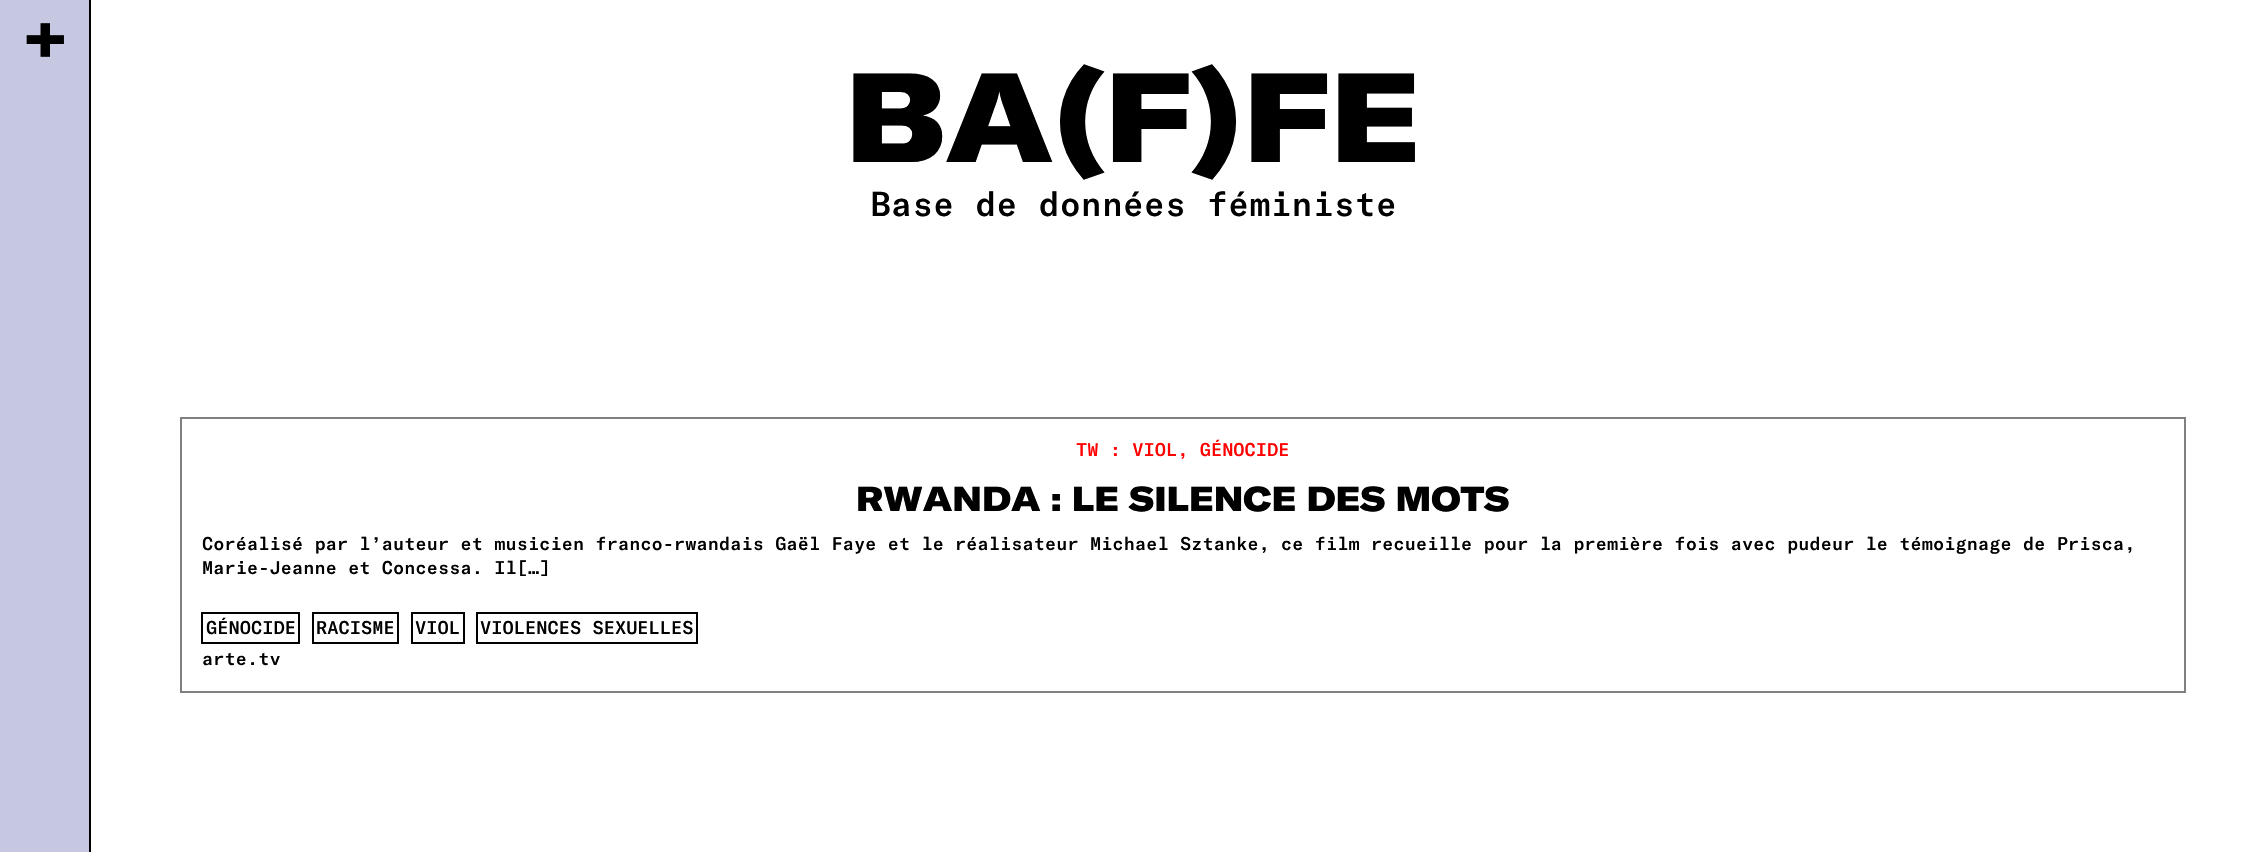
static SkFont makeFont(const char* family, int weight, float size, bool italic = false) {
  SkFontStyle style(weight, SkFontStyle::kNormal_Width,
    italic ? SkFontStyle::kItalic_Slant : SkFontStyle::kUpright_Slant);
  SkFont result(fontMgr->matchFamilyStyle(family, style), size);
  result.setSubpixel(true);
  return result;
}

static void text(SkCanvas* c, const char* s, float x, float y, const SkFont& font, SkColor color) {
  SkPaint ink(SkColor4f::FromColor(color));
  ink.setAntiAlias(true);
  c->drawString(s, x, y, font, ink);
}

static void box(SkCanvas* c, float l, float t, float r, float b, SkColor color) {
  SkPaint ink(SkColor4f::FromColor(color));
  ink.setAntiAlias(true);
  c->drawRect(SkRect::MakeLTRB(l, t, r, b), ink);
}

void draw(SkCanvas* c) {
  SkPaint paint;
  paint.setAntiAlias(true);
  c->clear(0xffffffff);
  box(c, 0, 0, 89, 852, 0xffc5c8e0);
  box(c, 89, 0, 91, 852, 0xff000000);
  SkFont face1 = makeFont("GT America", 900, 68);
  text(c, "+", 24, 62, face1, 0xff000000);
  SkFont face2 = makeFont("GT America", 900, 124.5f);
  text(c, "BA(F)FE", 845, 162, face2, 0xff000000);
  SkFont face3 = makeFont("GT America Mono", 500, 34);
  text(c, "Base de données féministe", 870, 216, face3, 0xff000000);
  paint.setStyle(SkPaint::kStroke_Style);
  paint.setStrokeWidth(2);
  paint.setColor(0xff808080);
  c->drawRect(SkRect::MakeLTRB(181, 418, 2185, 692), paint);
  SkFont face4 = makeFont("GT America Mono", 500, 18.13f);
  text(c, "TW : VIOL, GÉNOCIDE", 1076, 456, face4, 0xffff0000);
  SkFont face5 = makeFont("GT America", 900, 34);
  text(c, "RWANDA : LE SILENCE DES MOTS", 856, 511, face5, 0xff000000);
  text(c, "Coréalisé par l’auteur et musicien franco-rwandais Gaël Faye et le réalisateur Michael Sztanke, ce film recueille pour la première fois avec pudeur le témoignage de Prisca,", 202, 550, face4, 0xff000000);
  text(c, "Marie-Jeanne et Concessa. Il[…]", 202, 574, face4, 0xff000000);
  paint.setColor(0xff000000);
  c->drawRect(SkRect::MakeLTRB(202, 613, 299, 643), paint);
  text(c, "GÉNOCIDE", 206, 634, face4, 0xff000000);
  c->drawRect(SkRect::MakeLTRB(313, 613, 398, 643), paint);
  text(c, "RACISME", 316, 634, face4, 0xff000000);
  c->drawRect(SkRect::MakeLTRB(412, 613, 464, 643), paint);
  text(c, "VIOL", 415, 634, face4, 0xff000000);
  c->drawRect(SkRect::MakeLTRB(477, 613, 697, 643), paint);
  text(c, "VIOLENCES SEXUELLES", 480, 634, face4, 0xff000000);
  text(c, "arte.tv", 202, 665, face4, 0xff000000);
}
